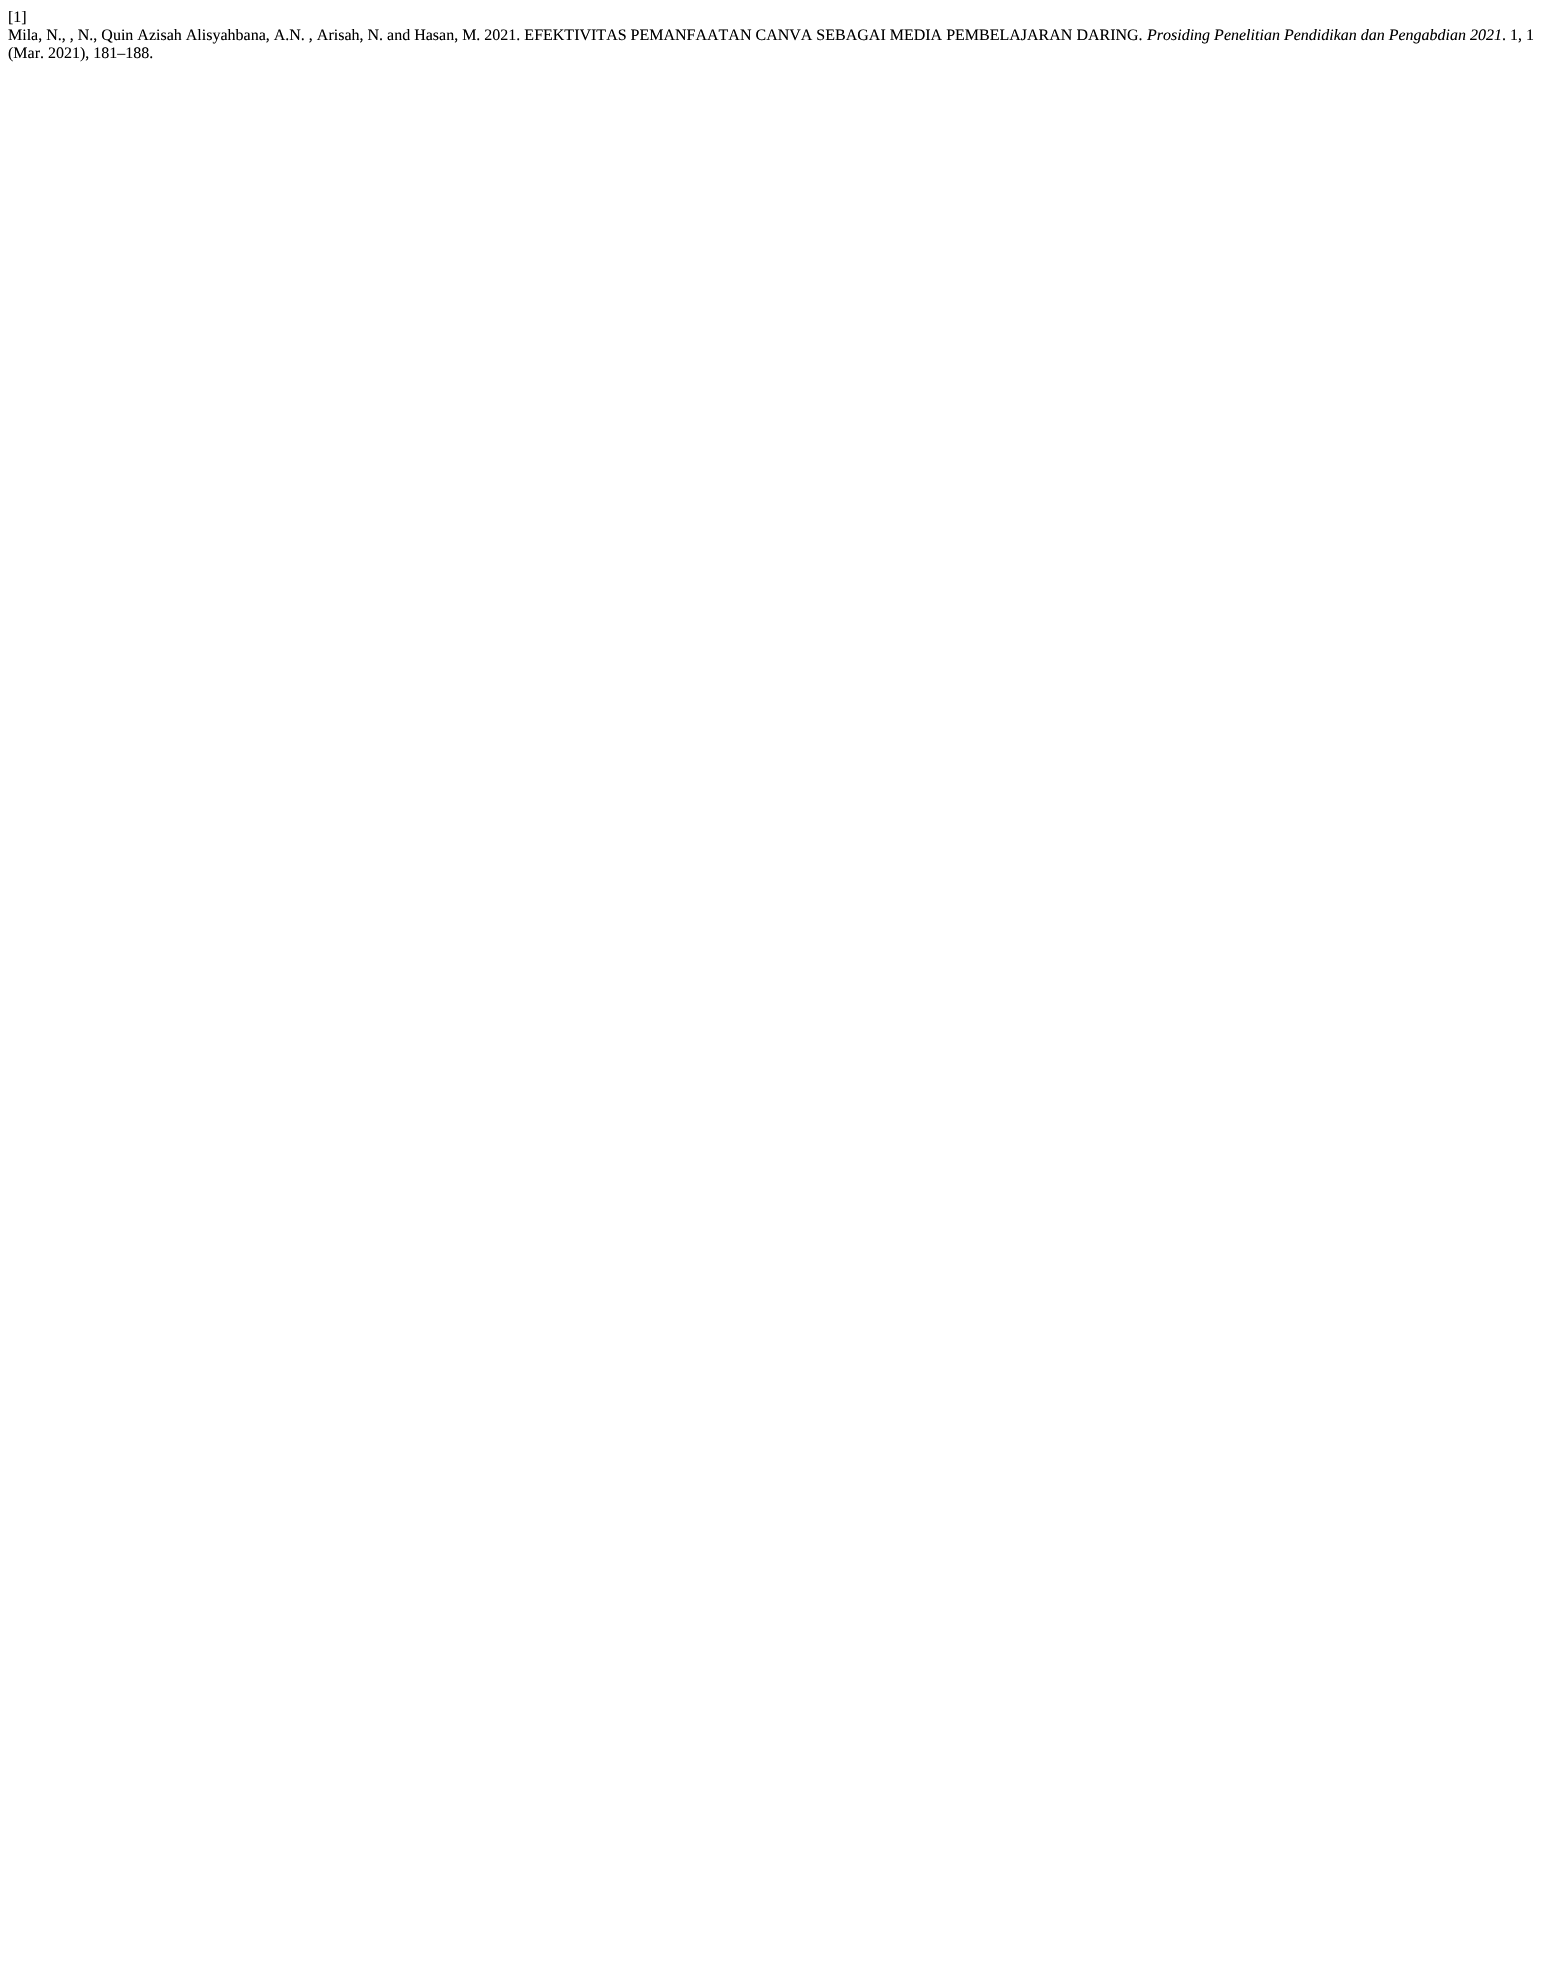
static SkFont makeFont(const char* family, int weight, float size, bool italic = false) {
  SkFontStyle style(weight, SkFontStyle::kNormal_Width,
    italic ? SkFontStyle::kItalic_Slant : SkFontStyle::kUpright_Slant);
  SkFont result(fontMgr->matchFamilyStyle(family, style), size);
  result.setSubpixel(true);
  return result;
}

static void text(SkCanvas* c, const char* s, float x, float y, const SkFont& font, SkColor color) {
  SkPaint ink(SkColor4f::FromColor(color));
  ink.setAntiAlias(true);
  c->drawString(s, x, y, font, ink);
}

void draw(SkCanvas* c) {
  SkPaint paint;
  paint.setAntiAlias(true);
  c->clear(0xffffffff);
  SkFont face1 = makeFont("Liberation Serif", 400, 16);
  text(c, "[1]", 8, 22, face1, 0xff000000);
  text(c, "Mila, N., , N., Quin Azisah Alisyahbana, A.N. , Arisah, N. and Hasan, M. 2021. EFEKTIVITAS PEMANFAATAN CANVA SEBAGAI MEDIA PEMBELAJARAN DARING.", 8, 40, face1, 0xff000000);
  SkFont face2 = makeFont("Liberation Serif", 400, 16, true);
  text(c, "Prosiding Penelitian Pendidikan dan Pengabdian 2021", 1147, 40, face2, 0xff000000);
  text(c, ". 1, 1", 1502, 40, face1, 0xff000000);
  text(c, "(Mar. 2021), 181–188.", 8, 58, face1, 0xff000000);
}
